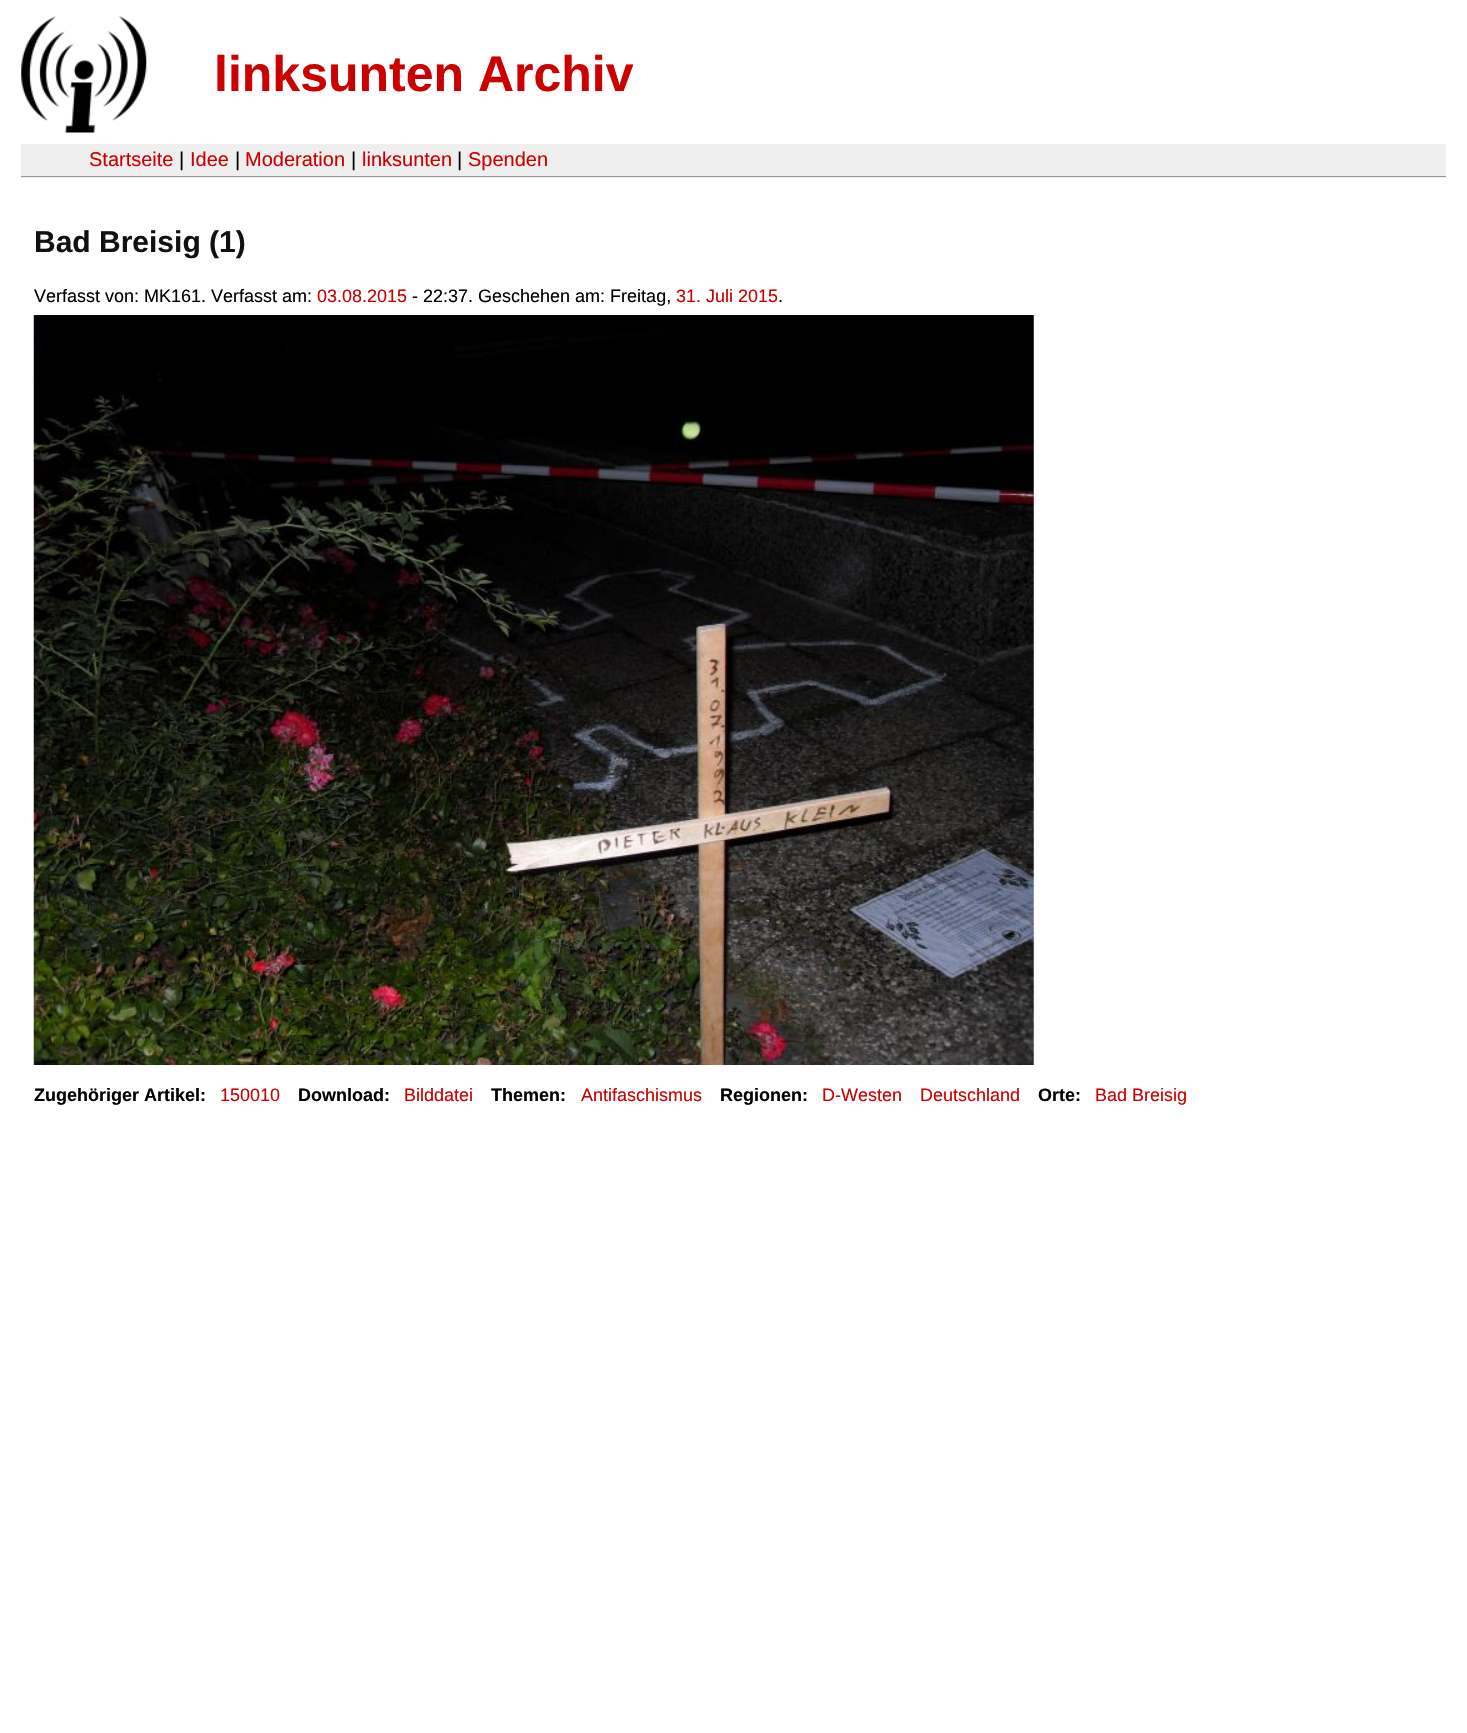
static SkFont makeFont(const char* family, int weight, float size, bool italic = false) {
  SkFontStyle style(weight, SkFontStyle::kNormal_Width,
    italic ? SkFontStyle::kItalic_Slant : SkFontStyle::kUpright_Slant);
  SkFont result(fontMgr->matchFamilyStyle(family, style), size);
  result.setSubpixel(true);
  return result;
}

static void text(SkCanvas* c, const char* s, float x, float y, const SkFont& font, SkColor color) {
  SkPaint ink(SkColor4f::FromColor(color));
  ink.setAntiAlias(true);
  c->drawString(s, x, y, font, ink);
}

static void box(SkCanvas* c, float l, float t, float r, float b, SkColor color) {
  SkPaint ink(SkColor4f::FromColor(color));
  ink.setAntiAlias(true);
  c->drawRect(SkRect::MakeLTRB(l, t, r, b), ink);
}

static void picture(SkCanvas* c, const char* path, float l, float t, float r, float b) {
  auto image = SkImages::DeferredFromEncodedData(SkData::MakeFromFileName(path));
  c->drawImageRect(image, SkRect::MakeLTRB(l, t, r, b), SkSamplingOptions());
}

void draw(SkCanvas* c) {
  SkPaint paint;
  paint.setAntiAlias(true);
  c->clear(0xffffffff);
  picture(c, "img_01.png", 21, 16, 147, 133);
  SkFont face1 = makeFont("Liberation Sans", 700, 50);
  text(c, "linksunten Archiv", 214, 91, face1, 0xffcc0000);
  box(c, 21, 144, 1446, 178, 0xffefefef);
  box(c, 21, 176, 1446, 177, 0xff999999);
  SkFont face2 = makeFont("Liberation Sans", 400, 20);
  text(c, "Startseite", 89, 166, face2, 0xffcc0000);
  text(c, "|", 179, 166, face2, 0xff000000);
  text(c, "Idee", 190, 166, face2, 0xffcc0000);
  text(c, "|", 235, 166, face2, 0xff000000);
  text(c, "Moderation", 245, 166, face2, 0xffcc0000);
  text(c, "|", 351, 166, face2, 0xff000000);
  text(c, "linksunten", 362, 166, face2, 0xffcc0000);
  text(c, "|", 457, 166, face2, 0xff000000);
  text(c, "Spenden", 468, 166, face2, 0xffcc0000);
  SkFont face3 = makeFont("Liberation Sans", 700, 30);
  text(c, "Bad Breisig (1)", 34, 252, face3, 0xff111111);
  SkFont face4 = makeFont("Liberation Sans", 400, 18);
  text(c, "Verfasst von: MK161. Verfasst am:", 34, 302, face4, 0xff000000);
  text(c, "03.08.2015", 317, 302, face4, 0xffcc0000);
  text(c, "- 22:37. Geschehen am: Freitag,", 412, 302, face4, 0xff000000);
  text(c, "31. Juli 2015", 676, 302, face4, 0xffcc0000);
  text(c, ".", 778, 302, face4, 0xff000000);
  picture(c, "img_02.png", 33, 315, 1034, 1065);
  SkFont face5 = makeFont("Liberation Sans", 700, 18);
  text(c, "Zugehöriger Artikel:", 34, 1101, face5, 0xff000000);
  text(c, "150010", 220, 1101, face4, 0xffcc0000);
  text(c, "Download:", 298, 1101, face5, 0xff000000);
  text(c, "Bilddatei", 404, 1101, face4, 0xffcc0000);
  text(c, "Themen:", 491, 1101, face5, 0xff000000);
  text(c, "Antifaschismus", 581, 1101, face4, 0xffcc0000);
  text(c, "Regionen:", 720, 1101, face5, 0xff000000);
  text(c, "D-Westen", 822, 1101, face4, 0xffcc0000);
  text(c, "Deutschland", 920, 1101, face4, 0xffcc0000);
  text(c, "Orte:", 1038, 1101, face5, 0xff000000);
  text(c, "Bad Breisig", 1095, 1101, face4, 0xffcc0000);
}
